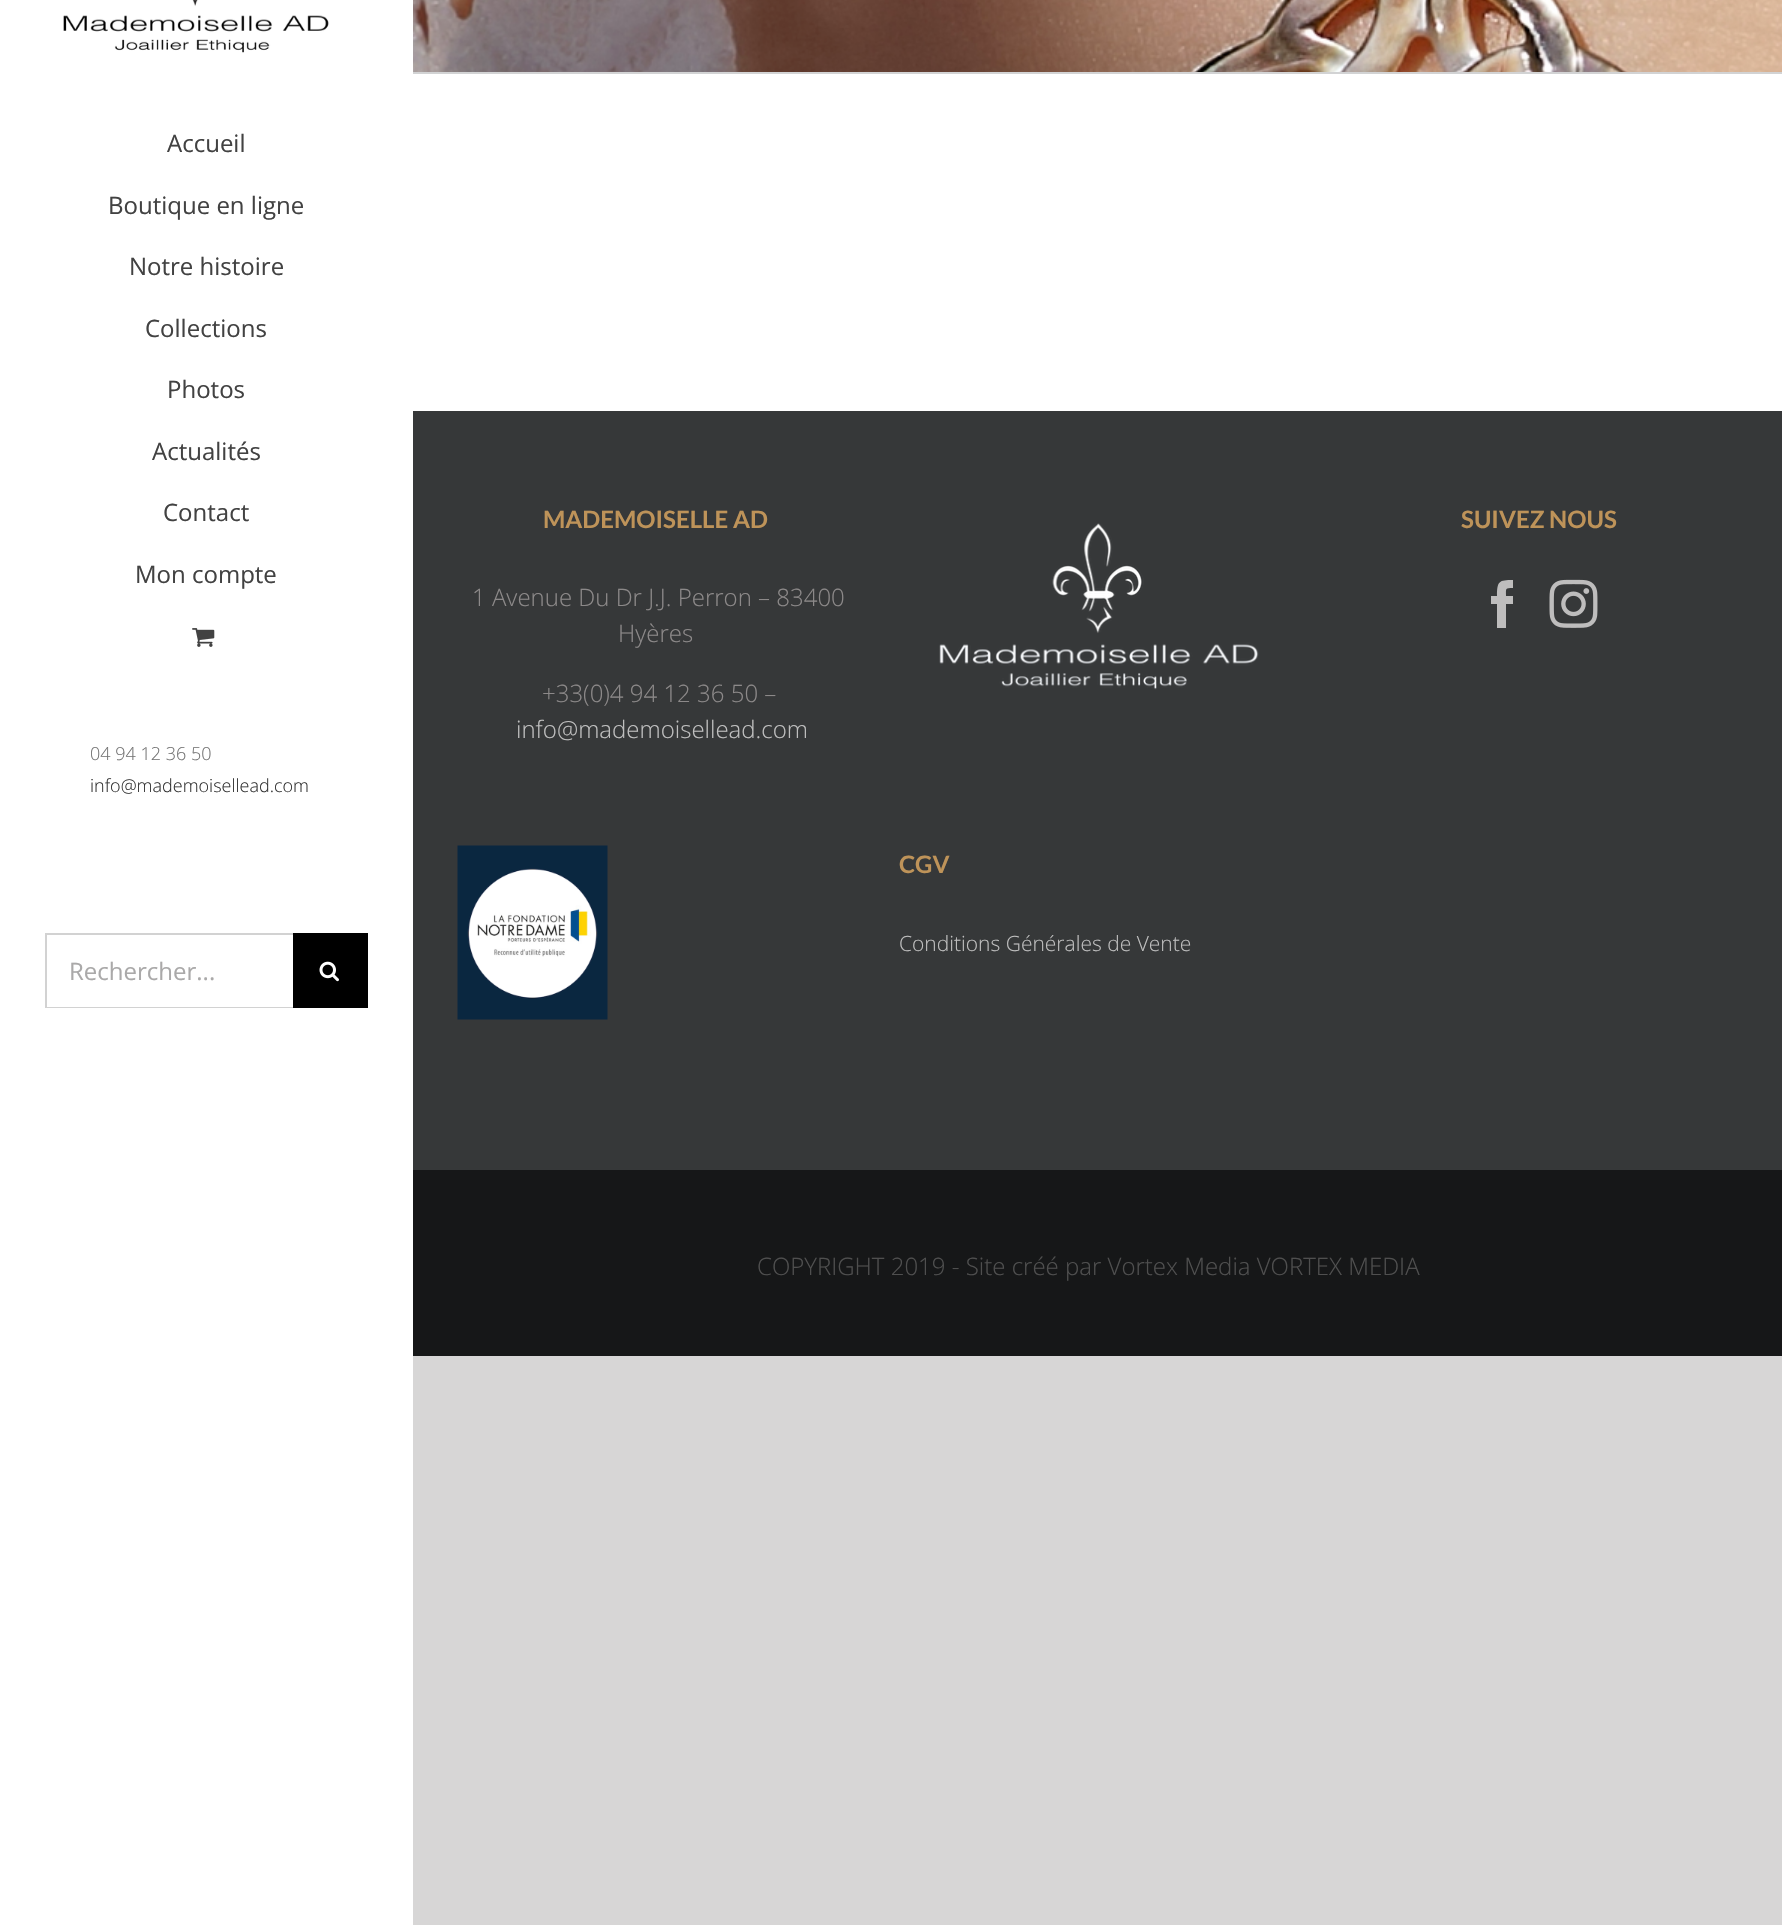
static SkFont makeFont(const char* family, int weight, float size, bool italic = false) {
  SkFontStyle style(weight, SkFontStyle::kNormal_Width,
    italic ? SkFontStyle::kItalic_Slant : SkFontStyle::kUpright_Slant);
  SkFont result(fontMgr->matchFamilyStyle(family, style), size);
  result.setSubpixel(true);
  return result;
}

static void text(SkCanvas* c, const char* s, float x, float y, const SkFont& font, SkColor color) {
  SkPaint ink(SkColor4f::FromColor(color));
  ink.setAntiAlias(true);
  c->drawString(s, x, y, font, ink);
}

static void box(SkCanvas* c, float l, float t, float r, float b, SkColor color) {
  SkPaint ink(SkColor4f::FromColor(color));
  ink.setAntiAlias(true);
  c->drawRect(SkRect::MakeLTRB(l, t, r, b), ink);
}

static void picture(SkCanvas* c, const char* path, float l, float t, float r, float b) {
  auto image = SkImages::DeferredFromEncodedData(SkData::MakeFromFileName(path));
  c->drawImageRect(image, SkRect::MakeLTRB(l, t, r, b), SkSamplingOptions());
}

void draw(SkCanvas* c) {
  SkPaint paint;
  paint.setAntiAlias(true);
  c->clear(0xffd7d6d6);
  box(c, 413, 74, 1782, 411, 0xffffffff);
  picture(c, "img_01.png", 413, 0, 1782, 72);
  box(c, 413, 72, 1782, 74, 0xffd2d3d4);
  box(c, 0, 0, 413, 1925, 0xffffffff);
  picture(c, "img_02.png", 63, 0, 329, 53);
  SkFont face1 = makeFont("Open Sans", 400, 24);
  text(c, "Accueil", 167, 152, face1, 0xff424242);
  text(c, "Boutique en ligne", 108, 214, face1, 0xff424242);
  text(c, "Notre histoire", 129, 275, face1, 0xff424242);
  text(c, "Collections", 145, 337, face1, 0xff424242);
  text(c, "Photos", 167, 398, face1, 0xff424242);
  text(c, "Actualités", 152, 460, face1, 0xff424242);
  text(c, "Contact", 163, 521, face1, 0xff424242);
  text(c, "Mon compte", 135, 583, face1, 0xff424242);
  picture(c, "img_03.png", 192, 628, 215, 647);
  SkFont face2 = makeFont("Open Sans", 300, 18);
  text(c, "04 94 12 36 50", 90, 760, face2, 0xff747474);
  text(c, "info@mademoisellead.com", 90, 792, face2, 0xff333333);
  box(c, 45, 933, 293, 935, 0xffd2d2d2);
  box(c, 45, 1007, 293, 1008, 0xffd2d2d2);
  box(c, 45, 933, 47, 1008, 0xffd2d2d2);
  text(c, "Rechercher...", 69, 980, face1, 0xffaaa9a9);
  box(c, 293, 933, 368, 1008, 0xff000000);
  picture(c, "img_04.png", 319, 961, 339, 982);
  box(c, 413, 411, 1782, 1170, 0xff363839);
  SkFont face3 = makeFont("Lato", 700, 24);
  text(c, "MADEMOISELLE AD", 543, 528, face3, 0xffbe9359);
  SkFont face4 = makeFont("Open Sans", 300, 24);
  text(c, "1 Avenue Du Dr J.J. Perron – 83400", 472, 606, face4, 0xff8c8989);
  text(c, "Hyères", 618, 642, face4, 0xff8c8989);
  text(c, "+33(0)4 94 12 36 50 –", 542, 702, face4, 0xff8c8989);
  text(c, "info@mademoisellead.com", 516, 738, face4, 0xffbfbfbf);
  text(c, "SUIVEZ NOUS", 1461, 528, face3, 0xffbe9359);
  paint.setColor(0xffbebdbd);
  c->drawPath(SkPathBuilder().moveTo(1506, 628).lineTo(1497, 628).lineTo(1497, 604).lineTo(1491, 604).lineTo(1491, 596).lineTo(1497, 596).cubicTo(1497, 581, 1499, 580, 1513, 580).lineTo(1513, 588).cubicTo(1505, 588, 1506, 588, 1506, 596).lineTo(1513, 596).lineTo(1513, 604).lineTo(1506, 604).close().detach(), paint);
  picture(c, "img_05.png", 1549, 579, 1598, 628);
  picture(c, "img_06.png", 939, 523, 1259, 690);
  picture(c, "img_07.png", 457, 845, 608, 1020);
  text(c, "CGV", 899, 873, face3, 0xffbe9359);
  SkFont face5 = makeFont("Open Sans", 300, 21);
  text(c, "Conditions Générales de Vente", 899, 951, face5, 0xffbfbfbf);
  box(c, 413, 1170, 1782, 1356, 0xff161718);
  text(c, "COPYRIGHT 2019 - Site créé par Vortex Media VORTEX MEDIA", 757, 1275, face4, 0xff4f4f4f);
}
